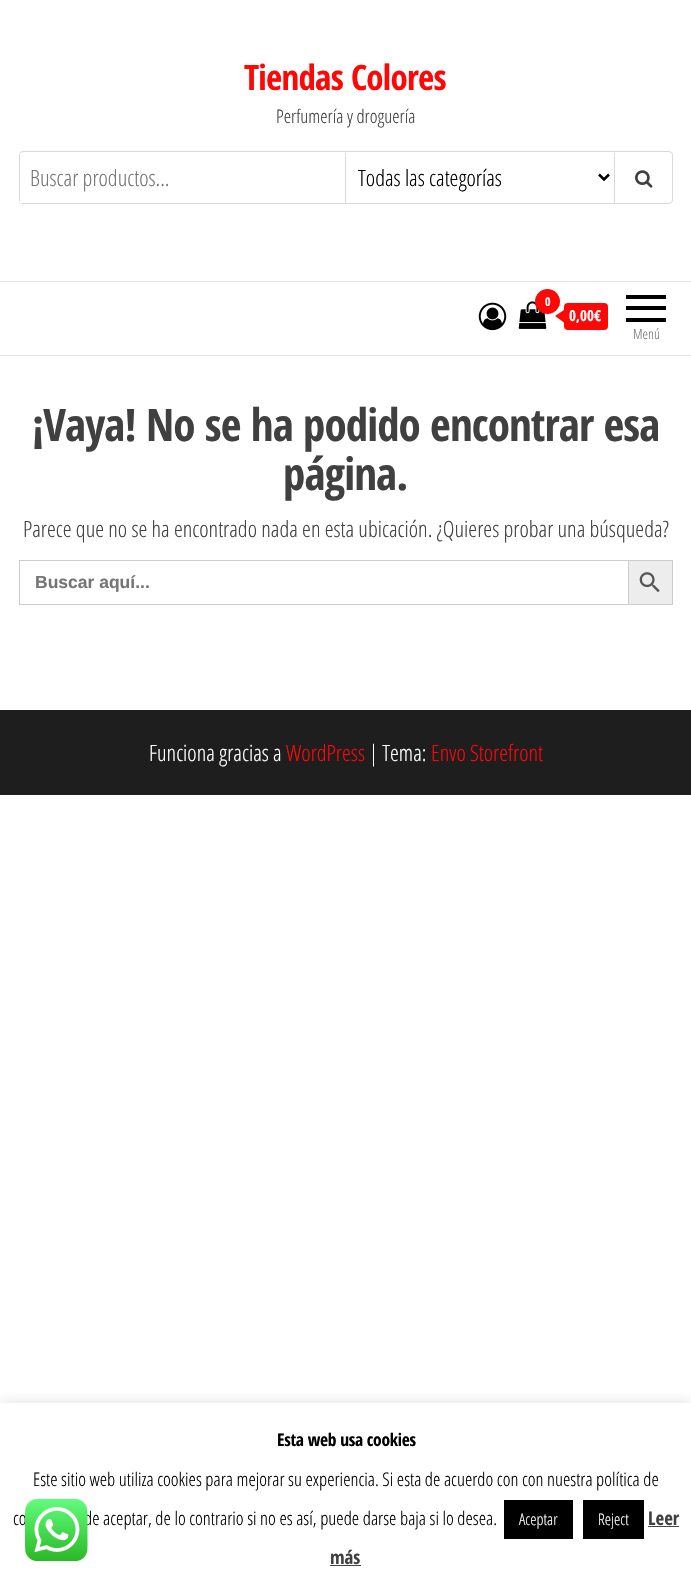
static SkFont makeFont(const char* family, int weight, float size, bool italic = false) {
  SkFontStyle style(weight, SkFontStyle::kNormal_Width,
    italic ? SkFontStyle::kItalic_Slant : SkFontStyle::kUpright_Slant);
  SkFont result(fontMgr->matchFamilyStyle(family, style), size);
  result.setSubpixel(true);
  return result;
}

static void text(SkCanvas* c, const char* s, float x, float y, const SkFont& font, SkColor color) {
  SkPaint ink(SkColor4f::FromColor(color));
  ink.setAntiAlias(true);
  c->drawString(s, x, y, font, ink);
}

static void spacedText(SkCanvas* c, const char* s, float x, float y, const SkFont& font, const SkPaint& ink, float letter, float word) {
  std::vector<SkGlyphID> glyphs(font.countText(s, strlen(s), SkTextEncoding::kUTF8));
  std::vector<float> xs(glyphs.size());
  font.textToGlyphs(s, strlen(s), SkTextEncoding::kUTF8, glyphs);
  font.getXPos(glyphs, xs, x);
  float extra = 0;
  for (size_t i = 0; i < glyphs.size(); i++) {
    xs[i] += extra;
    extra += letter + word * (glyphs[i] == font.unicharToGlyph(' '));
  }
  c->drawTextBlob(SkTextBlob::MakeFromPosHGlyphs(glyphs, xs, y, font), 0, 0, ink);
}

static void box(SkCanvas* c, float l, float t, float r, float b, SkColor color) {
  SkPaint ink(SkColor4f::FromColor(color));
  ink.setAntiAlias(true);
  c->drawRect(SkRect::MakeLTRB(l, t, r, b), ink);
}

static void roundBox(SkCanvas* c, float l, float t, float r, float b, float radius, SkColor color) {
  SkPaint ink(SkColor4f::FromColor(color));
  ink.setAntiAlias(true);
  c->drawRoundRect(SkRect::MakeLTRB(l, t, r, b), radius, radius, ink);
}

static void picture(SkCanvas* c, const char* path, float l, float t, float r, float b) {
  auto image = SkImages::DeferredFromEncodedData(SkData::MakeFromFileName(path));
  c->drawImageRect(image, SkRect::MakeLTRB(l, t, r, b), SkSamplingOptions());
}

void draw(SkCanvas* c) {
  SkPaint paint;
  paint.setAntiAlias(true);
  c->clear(0xffffffff);
  SkFont face1 = makeFont("Open Sans Condensed", 700, 35);
  paint.setColor(0xffff0707);
  spacedText(c, "Tiendas Colores", 244, 90, face1, paint, -0.75f, 0);
  SkFont face2 = makeFont("Open Sans Condensed", 300, 18.75f);
  text(c, "Perfumería y droguería", 276, 123, face2, 0xff404040);
  paint.setStyle(SkPaint::kStroke_Style);
  paint.setStrokeWidth(1);
  paint.setColor(0xffd9d9d9);
  c->drawRoundRect(SkRect::MakeLTRB(19.5f, 151.5f, 672.5f, 203.5f), 3.5f, 3.5f, paint);
  box(c, 20, 153, 23, 203, 0xffffffff);
  box(c, 345, 153, 346, 203, 0xffd9d9d9);
  SkFont face3 = makeFont("Open Sans Condensed", 300, 22.5f);
  text(c, "Buscar productos...", 30, 186, face3, 0xff757575);
  paint.setStrokeWidth(2.5f);
  paint.setColor(0xff000000);
  c->drawPath(SkPathBuilder().moveTo(599, 174.5f).lineTo(604, 179.5f).lineTo(609, 174.5f).detach(), paint);
  text(c, "Todas las categorías", 358, 186, face3, 0xff000000);
  box(c, 614, 153, 615, 203, 0xffd9d9d9);
  picture(c, "img_01.png", 635, 170, 653, 188);
  box(c, 0, 281, 691, 282, 0xffe2e2e2);
  box(c, 0, 355, 691, 356, 0xffe2e2e2);
  picture(c, "img_02.png", 478, 302, 507, 331);
  picture(c, "img_03.png", 518, 301, 547, 329);
  paint.setStyle(SkPaint::kFill_Style);
  paint.setColor(0xffff0707);
  c->drawCircle(547.5f, 301.5f, 12.5f, paint);
  SkFont face4 = makeFont("Open Sans Condensed", 700, 12);
  text(c, "0", 545, 306, face4, 0xffffffff);
  roundBox(c, 564, 303, 608, 330, 4, 0xffff0707);
  c->drawPath(SkPathBuilder().moveTo(564, 310).lineTo(564, 322.5f).lineTo(555, 316).close().detach(), paint);
  SkFont face5 = makeFont("Open Sans Condensed", 700, 15);
  text(c, "0,00€", 569, 321, face5, 0xffffffff);
  box(c, 626, 295, 666, 299, 0xff000000);
  box(c, 626, 306, 666, 310, 0xff000000);
  box(c, 626, 318, 666, 322, 0xff000000);
  SkFont face6 = makeFont("Open Sans Condensed", 300, 14);
  text(c, "Menú", 633, 339, face6, 0xff757575);
  SkFont face7 = makeFont("Open Sans Condensed", 700, 45);
  paint.setColor(0xff404040);
  spacedText(c, "¡Vaya! No se ha podido encontrar esa", 32, 441, face7, paint, -0.9f, 0);
  spacedText(c, "página.", 283, 490, face7, paint, -0.9f, 0);
  text(c, "Parece que no se ha encontrado nada en esta ubicación. ¿Quieres probar una búsqueda?", 23, 537, face3, 0xff404040);
  box(c, 19, 560, 628, 561, 0xffcccccc);
  box(c, 19, 604, 628, 605, 0xffcccccc);
  box(c, 19, 560, 20, 605, 0xffcccccc);
  SkFont face8 = makeFont("Liberation Sans", 700, 17.5f);
  text(c, "Buscar aquí...", 35, 588, face8, 0xff757575);
  paint.setColor(0xffededed);
  c->drawRect(SkRect::MakeLTRB(628.5f, 560.5f, 672.5f, 604.5f), paint);
  paint.setStyle(SkPaint::kStroke_Style);
  paint.setStrokeWidth(1);
  paint.setColor(0xffcccccc);
  c->drawRect(SkRect::MakeLTRB(628.5f, 560.5f, 672.5f, 604.5f), paint);
  picture(c, "img_04.png", 639, 572, 660, 593);
  box(c, 0, 710, 691, 795, 0xff1e1e1e);
  text(c, "Funciona gracias a", 149, 761, face3, 0xffffffff);
  text(c, "WordPress", 286, 761, face3, 0xffff0707);
  text(c, "| Tema:", 369, 761, face3, 0xffffffff);
  text(c, "Envo Storefront", 431, 761, face3, 0xffff0707);
  c->save();
  c->clipRect(SkRect::MakeLTRB(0, 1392, 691, 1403));
  paint.setStyle(SkPaint::kFill_Style);
  paint.setColor(0x4dacabab);
  paint.setMaskFilter(SkMaskFilter::MakeBlur(kNormal_SkBlurStyle, 6));
  c->drawRect(SkRect::MakeLTRB(0, 1401, 691, 1585), paint);
  paint.setMaskFilter(nullptr);
  c->restore();
  SkFont face9 = makeFont("Open Sans Condensed", 700, 17.5f);
  paint.setColor(0xff000000);
  spacedText(c, "Esta web usa cookies", 277, 1446, face9, paint, -0.3f, 0);
  text(c, "Este sitio web utiliza cookies para mejorar su experiencia. Si esta de acuerdo con con nuestra política de", 33, 1486, face2, 0xff000000);
  text(c, "co", 13, 1525, face2, 0xff000000);
  text(c, "de aceptar, de lo contrario si no es así, puede darse baja si lo desea.", 84, 1525, face2, 0xff000000);
  box(c, 504, 1500, 573, 1539, 0xff000000);
  SkFont face10 = makeFont("Open Sans Condensed", 300, 16);
  text(c, "Aceptar", 519, 1525, face10, 0xffffffff);
  box(c, 583, 1500, 644, 1539, 0xff000000);
  text(c, "Reject", 598, 1525, face10, 0xffffffff);
  SkFont face11 = makeFont("Open Sans Condensed", 700, 18.75f);
  text(c, "Leer", 648, 1525, face11, 0xff404040);
  box(c, 648, 1526, 679, 1527, 0xff444444);
  text(c, "más", 330, 1564, face11, 0xff404040);
  box(c, 330, 1565, 361, 1566, 0xff444444);
  picture(c, "img_05.png", 25, 1499, 88, 1561);
}
